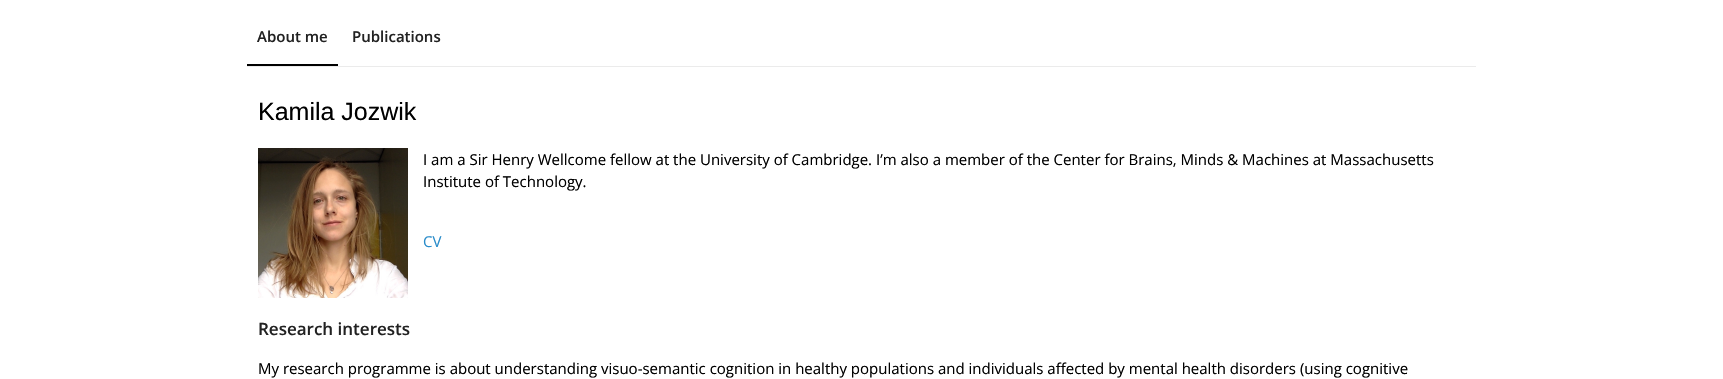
static SkFont makeFont(const char* family, int weight, float size, bool italic = false) {
  SkFontStyle style(weight, SkFontStyle::kNormal_Width,
    italic ? SkFontStyle::kItalic_Slant : SkFontStyle::kUpright_Slant);
  SkFont result(fontMgr->matchFamilyStyle(family, style), size);
  result.setSubpixel(true);
  return result;
}

static void text(SkCanvas* c, const char* s, float x, float y, const SkFont& font, SkColor color) {
  SkPaint ink(SkColor4f::FromColor(color));
  ink.setAntiAlias(true);
  c->drawString(s, x, y, font, ink);
}

static void box(SkCanvas* c, float l, float t, float r, float b, SkColor color) {
  SkPaint ink(SkColor4f::FromColor(color));
  ink.setAntiAlias(true);
  c->drawRect(SkRect::MakeLTRB(l, t, r, b), ink);
}

static void picture(SkCanvas* c, const char* path, float l, float t, float r, float b) {
  auto image = SkImages::DeferredFromEncodedData(SkData::MakeFromFileName(path));
  c->drawImageRect(image, SkRect::MakeLTRB(l, t, r, b), SkSamplingOptions());
}

void draw(SkCanvas* c) {
  SkPaint paint;
  paint.setAntiAlias(true);
  c->clear(0xffffffff);
  box(c, 247, 66, 1476, 67, 0xffebebeb);
  box(c, 247, 64, 338, 66, 0xff000000);
  SkFont face1 = makeFont("Open Sans", 600, 15);
  text(c, "About me", 257, 42, face1, 0xff222222);
  text(c, "Publications", 352, 42, face1, 0xff222222);
  SkFont face2 = makeFont("Liberation Sans", 400, 25);
  text(c, "Kamila Jozwik", 258, 120, face2, 0xff000000);
  picture(c, "img_01.png", 258, 148, 408, 298);
  SkFont face3 = makeFont("Open Sans", 400, 15);
  text(c, "I am a Sir Henry Wellcome fellow at the University of Cambridge. I’m also a member of the Center for Brains, Minds & Machines at Massachusetts", 423, 165, face3, 0xff000000);
  text(c, "Institute of Technology.", 423, 187, face3, 0xff000000);
  text(c, "CV", 423, 247, face3, 0xff298cca);
  SkFont face4 = makeFont("Open Sans", 600, 17);
  text(c, "Research interests", 258, 335, face4, 0xff222222);
  text(c, "My research programme is about understanding visuo-semantic cognition in healthy populations and individuals affected by mental health disorders (using cognitive", 258, 374, face3, 0xff000000);
}
